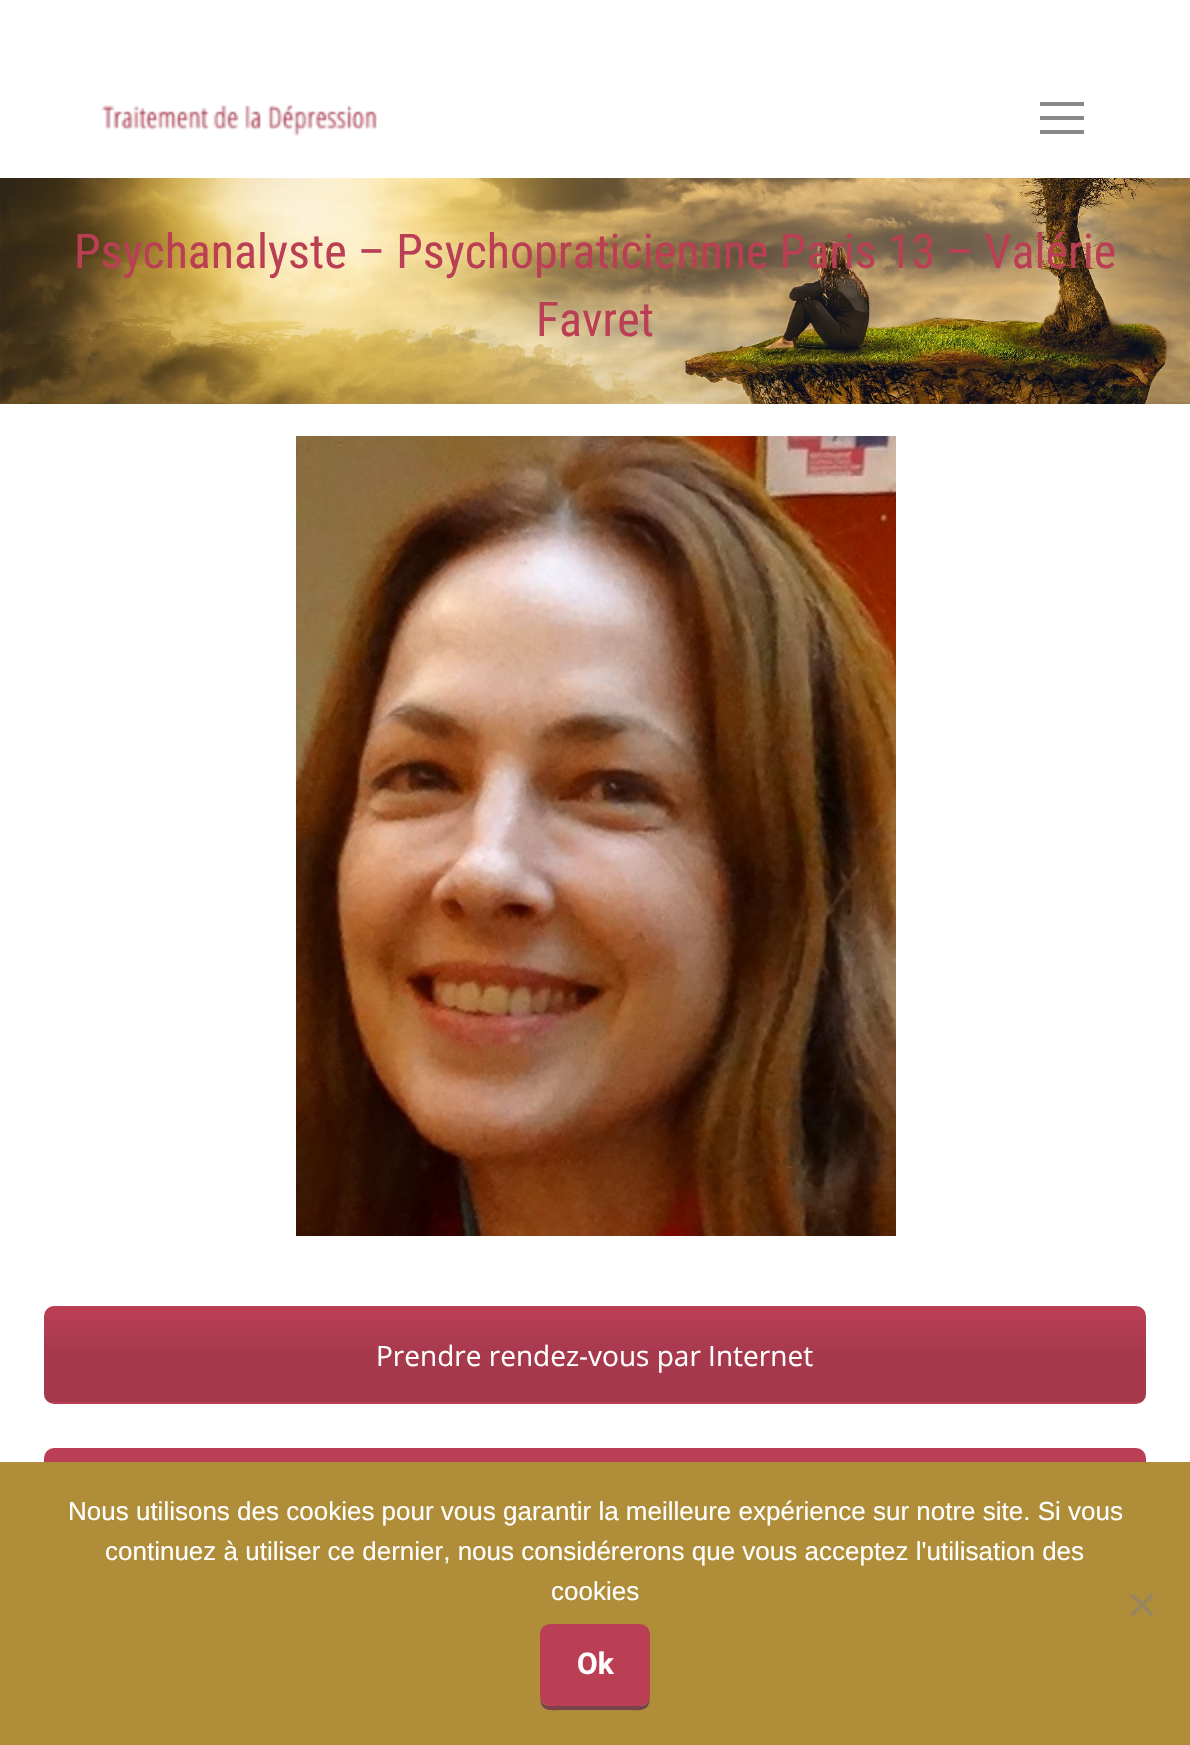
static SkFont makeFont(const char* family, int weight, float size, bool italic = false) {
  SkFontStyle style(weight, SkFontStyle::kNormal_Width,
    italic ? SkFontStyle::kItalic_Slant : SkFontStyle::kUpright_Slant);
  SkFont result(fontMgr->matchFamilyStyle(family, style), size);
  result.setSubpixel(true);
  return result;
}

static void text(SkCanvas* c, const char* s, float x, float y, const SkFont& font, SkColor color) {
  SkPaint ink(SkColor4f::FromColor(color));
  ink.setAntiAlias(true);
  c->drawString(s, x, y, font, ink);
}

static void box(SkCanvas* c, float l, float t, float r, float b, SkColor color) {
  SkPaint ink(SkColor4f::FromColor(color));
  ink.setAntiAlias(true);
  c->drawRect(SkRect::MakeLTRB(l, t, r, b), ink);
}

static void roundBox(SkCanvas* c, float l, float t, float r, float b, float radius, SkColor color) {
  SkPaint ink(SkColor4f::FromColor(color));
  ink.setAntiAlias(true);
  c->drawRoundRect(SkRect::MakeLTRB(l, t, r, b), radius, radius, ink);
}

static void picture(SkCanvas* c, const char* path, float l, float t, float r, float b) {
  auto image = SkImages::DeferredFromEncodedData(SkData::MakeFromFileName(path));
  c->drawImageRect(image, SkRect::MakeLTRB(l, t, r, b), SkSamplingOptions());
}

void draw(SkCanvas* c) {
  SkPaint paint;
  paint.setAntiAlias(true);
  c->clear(0xffffffff);
  picture(c, "img_01.png", 101, 104, 377, 137);
  box(c, 1040, 102, 1084, 106, 0xff888888);
  box(c, 1040, 116, 1084, 120, 0xff888888);
  box(c, 1040, 130, 1084, 134, 0xff888888);
  picture(c, "img_02.png", 0, 178, 1190, 404);
  SkFont face1 = makeFont("Roboto Condensed", 400, 48);
  text(c, "Psychanalyste – Psychopraticiennne Paris 13 – Valérie", 74, 268, face1, 0xffba3f55);
  text(c, "Favret", 536, 336, face1, 0xffba3f55);
  picture(c, "img_03.png", 296, 436, 896, 1236);
  roundBox(c, 44, 1306, 1146, 1404, 10, 0xffba3f55);
  c->save();
  c->clipPath(SkPathBuilder().moveTo(54, 1306).lineTo(1136, 1306).cubicTo(1141.5f, 1306, 1146, 1310.5f, 1146, 1316).lineTo(1146, 1394).cubicTo(1146, 1399.5f, 1141.5f, 1404, 1136, 1404).lineTo(54, 1404).cubicTo(48.5f, 1404, 44, 1399.5f, 44, 1394).lineTo(44, 1316).cubicTo(44, 1310.5f, 48.5f, 1306, 54, 1306).close().detach(), true);
  {
    const SkColor colors[] = {0x00000000, 0x1a000000, 0x1a000000};
    const float stops[] = {0, 0.5f, 1};
    const SkPoint ends[] = {{1144, 1308}, {1144, 1402}};
    paint.setShader(SkGradientShader::MakeLinear(ends, colors, stops, 3, SkTileMode::kClamp));
    paint.setAlpha(255);
  }
  c->drawRect(SkRect::MakeLTRB(44, 1318, 1146, 1402), paint);
  c->restore();
  SkFont face2 = makeFont("Open Sans", 400, 28);
  text(c, "Prendre rendez-vous par Internet", 376, 1366, face2, 0xffffffff);
  roundBox(c, 44, 1448, 1146, 1546, 10, 0xffba3f55);
  {
    const SkColor colors[] = {0x00000000, 0x1a000000, 0x1a000000};
    const float stops[] = {0, 0.5f, 1};
    const SkPoint ends[] = {{1144, 1450}, {1144, 1544}};
    paint.setShader(SkGradientShader::MakeLinear(ends, colors, stops, 3, SkTileMode::kClamp));
    paint.setAlpha(255);
  }
  c->drawRect(SkRect::MakeLTRB(44, 1460, 1146, 1462), paint);
  box(c, 0, 1462, 1190, 1745, 0xffb08e39);
  SkFont face3 = makeFont("Liberation Sans", 400, 26);
  text(c, "Nous utilisons des cookies pour vous garantir la meilleure expérience sur notre site. Si vous", 68, 1520, face3, 0xffffffff);
  text(c, "continuez à utiliser ce dernier, nous considérerons que vous acceptez l'utilisation des", 105, 1560, face3, 0xffffffff);
  text(c, "cookies", 551, 1600, face3, 0xffffffff);
  paint.setShader(nullptr);
  paint.setColor(0xff98875d);
  c->drawPath(SkPathBuilder().moveTo(1151, 1593).lineTo(1154, 1596).lineTo(1133, 1617).lineTo(1130, 1614).close().detach(), paint);
  c->drawPath(SkPathBuilder().moveTo(1130, 1596).lineTo(1133, 1593).lineTo(1154, 1614).lineTo(1151, 1617).close().detach(), paint);
  paint.setColor(0xff7a424c);
  c->drawPath(SkPathBuilder().moveTo(540, 1696).cubicTo(540, 1713, 550, 1710, 565, 1710).lineTo(625, 1710).cubicTo(640, 1710, 650, 1713, 650, 1696).cubicTo(650, 1702, 646, 1706, 640, 1706).lineTo(550, 1706).cubicTo(544, 1706, 540, 1702, 540, 1696).close().detach(), paint);
  roundBox(c, 540, 1624, 650, 1706, 10, 0xffba3f55);
  SkFont face4 = makeFont("Roboto", 700, 30);
  text(c, "Ok", 577, 1674, face4, 0xffffffff);
}
